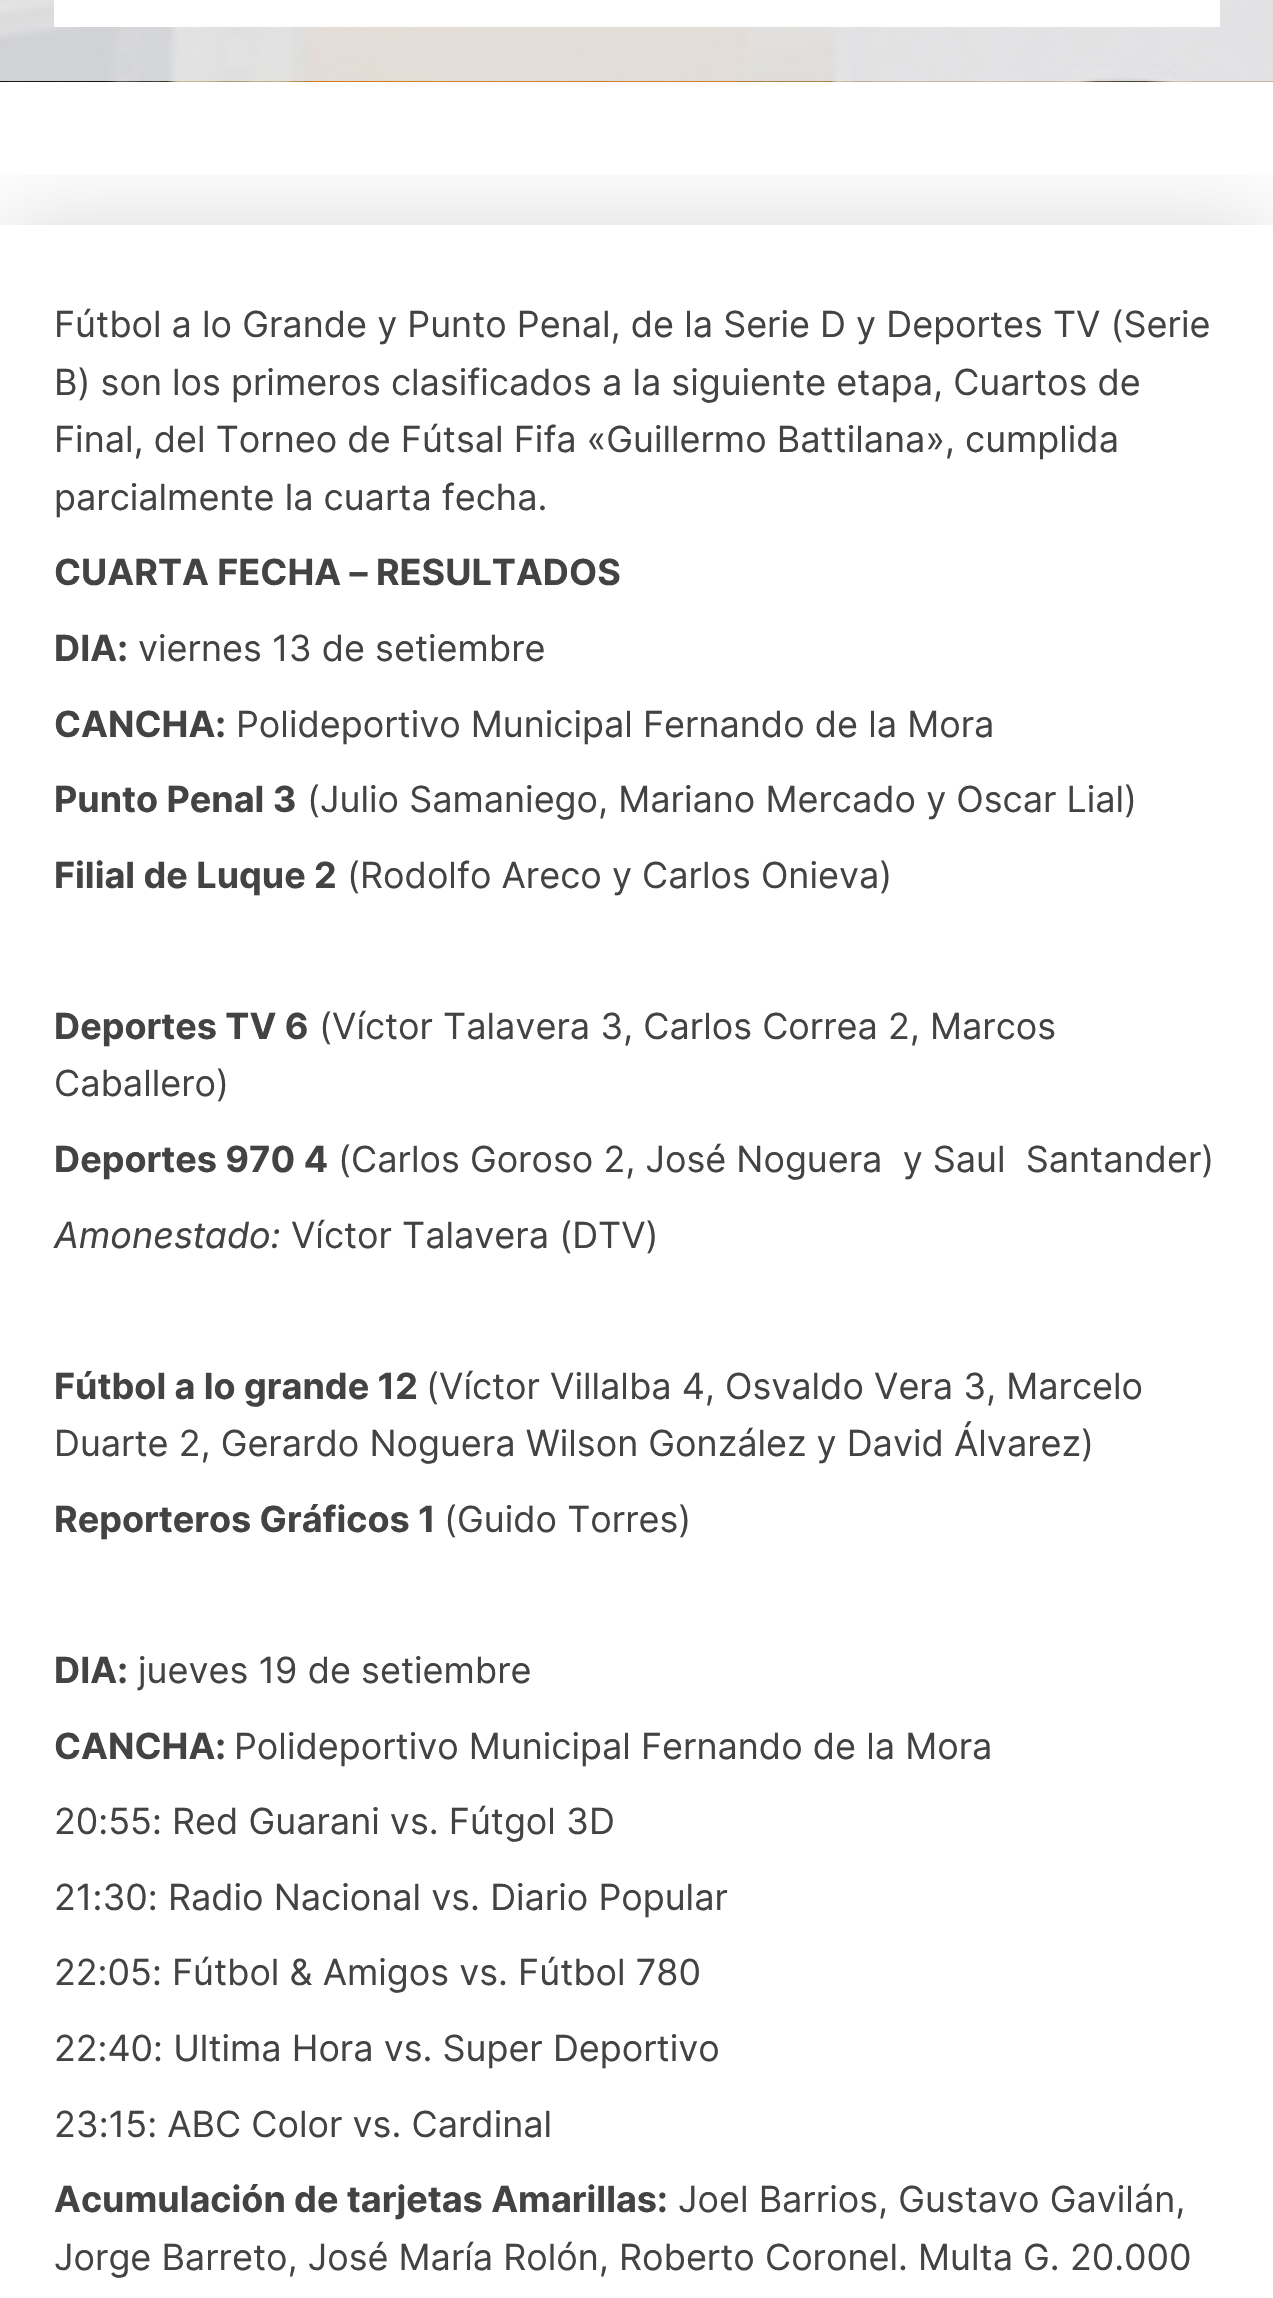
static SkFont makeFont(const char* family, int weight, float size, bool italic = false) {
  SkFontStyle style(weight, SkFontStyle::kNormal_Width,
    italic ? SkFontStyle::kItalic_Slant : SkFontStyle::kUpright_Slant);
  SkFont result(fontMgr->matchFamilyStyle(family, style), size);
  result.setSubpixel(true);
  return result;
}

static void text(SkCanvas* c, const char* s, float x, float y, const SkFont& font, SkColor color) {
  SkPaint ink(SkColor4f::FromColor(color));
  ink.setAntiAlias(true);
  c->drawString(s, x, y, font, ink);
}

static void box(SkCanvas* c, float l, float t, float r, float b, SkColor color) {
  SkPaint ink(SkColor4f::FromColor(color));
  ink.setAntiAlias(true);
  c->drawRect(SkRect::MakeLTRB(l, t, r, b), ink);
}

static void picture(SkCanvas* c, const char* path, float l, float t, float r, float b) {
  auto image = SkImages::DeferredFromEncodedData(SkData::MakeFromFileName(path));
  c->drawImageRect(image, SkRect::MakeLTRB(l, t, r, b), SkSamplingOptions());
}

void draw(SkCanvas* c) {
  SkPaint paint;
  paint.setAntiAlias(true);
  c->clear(0xffffffff);
  picture(c, "img_01.png", 0, 0, 1273, 82);
  box(c, 54, 0, 1220, 27, 0xffffffff);
  c->save();
  c->clipRect(SkRect::MakeLTRB(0, 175, 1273, 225));
  paint.setColor(0x26000000);
  paint.setMaskFilter(SkMaskFilter::MakeBlur(kNormal_SkBlurStyle, 45));
  c->drawRect(SkRect::MakeLTRB(0, 225, 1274, 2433), paint);
  paint.setMaskFilter(nullptr);
  c->restore();
  SkFont face1 = makeFont("Inter", 400, 36);
  text(c, "Fútbol a lo Grande y Punto Penal, de la Serie D y Deportes TV (Serie", 54, 337, face1, 0xff434343);
  text(c, "B) son los primeros clasificados a la siguiente etapa, Cuartos de", 54, 395, face1, 0xff434343);
  text(c, "Final, del Torneo de Fútsal Fifa «Guillermo Battilana», cumplida", 54, 452, face1, 0xff434343);
  text(c, "parcialmente la cuarta fecha.", 54, 510, face1, 0xff434343);
  SkFont face2 = makeFont("Inter", 700, 36);
  text(c, "CUARTA FECHA – RESULTADOS", 54, 585, face2, 0xff434343);
  text(c, "DIA:", 54, 661, face2, 0xff434343);
  text(c, "viernes 13 de setiembre", 138, 661, face1, 0xff434343);
  text(c, "CANCHA:", 54, 737, face2, 0xff434343);
  text(c, "Polideportivo Municipal Fernando de la Mora", 236, 737, face1, 0xff434343);
  text(c, "Punto Penal 3", 54, 812, face2, 0xff434343);
  text(c, "(Julio Samaniego, Mariano Mercado y Oscar Lial)", 307, 812, face1, 0xff434343);
  text(c, "Filial de Luque 2", 54, 888, face2, 0xff434343);
  text(c, "(Rodolfo Areco y Carlos Onieva)", 347, 888, face1, 0xff434343);
  text(c, "Deportes TV 6", 54, 1039, face2, 0xff434343);
  text(c, "(Víctor Talavera 3, Carlos Correa 2, Marcos", 319, 1039, face1, 0xff434343);
  text(c, "Caballero)", 54, 1096, face1, 0xff434343);
  text(c, "Deportes 970 4", 54, 1172, face2, 0xff434343);
  text(c, "(Carlos Goroso 2, José Noguera  y Saul  Santander)", 338, 1172, face1, 0xff434343);
  SkFont face3 = makeFont("Inter", 400, 36, true);
  text(c, "Amonestado:", 54, 1248, face3, 0xff434343);
  text(c, "Víctor Talavera (DTV)", 291, 1248, face1, 0xff434343);
  text(c, "Fútbol a lo grande 12", 54, 1399, face2, 0xff434343);
  text(c, "(Víctor Villalba 4, Osvaldo Vera 3, Marcelo", 426, 1399, face1, 0xff434343);
  text(c, "Duarte 2, Gerardo Noguera Wilson González y David Álvarez)", 54, 1456, face1, 0xff434343);
  text(c, "Reporteros Gráficos 1", 54, 1532, face2, 0xff434343);
  text(c, "(Guido Torres)", 444, 1532, face1, 0xff434343);
  text(c, "DIA:", 54, 1683, face2, 0xff434343);
  text(c, "jueves 19 de setiembre", 138, 1683, face1, 0xff434343);
  text(c, "CANCHA:", 54, 1759, face2, 0xff434343);
  text(c, "Polideportivo Municipal Fernando de la Mora", 234, 1759, face1, 0xff434343);
  text(c, "20:55: Red Guarani vs. Fútgol 3D", 54, 1834, face1, 0xff434343);
  text(c, "21:30: Radio Nacional vs. Diario Popular", 54, 1910, face1, 0xff434343);
  text(c, "22:05: Fútbol & Amigos vs. Fútbol 780", 54, 1985, face1, 0xff434343);
  text(c, "22:40: Ultima Hora vs. Super Deportivo", 54, 2061, face1, 0xff434343);
  text(c, "23:15: ABC Color vs. Cardinal", 54, 2137, face1, 0xff434343);
  text(c, "Acumulación de tarjetas Amarillas:", 54, 2212, face2, 0xff434343);
  text(c, "Joel Barrios, Gustavo Gavilán,", 678, 2212, face1, 0xff434343);
  text(c, "Jorge Barreto, José María Rolón, Roberto Coronel. Multa G. 20.000", 54, 2270, face1, 0xff434343);
}
